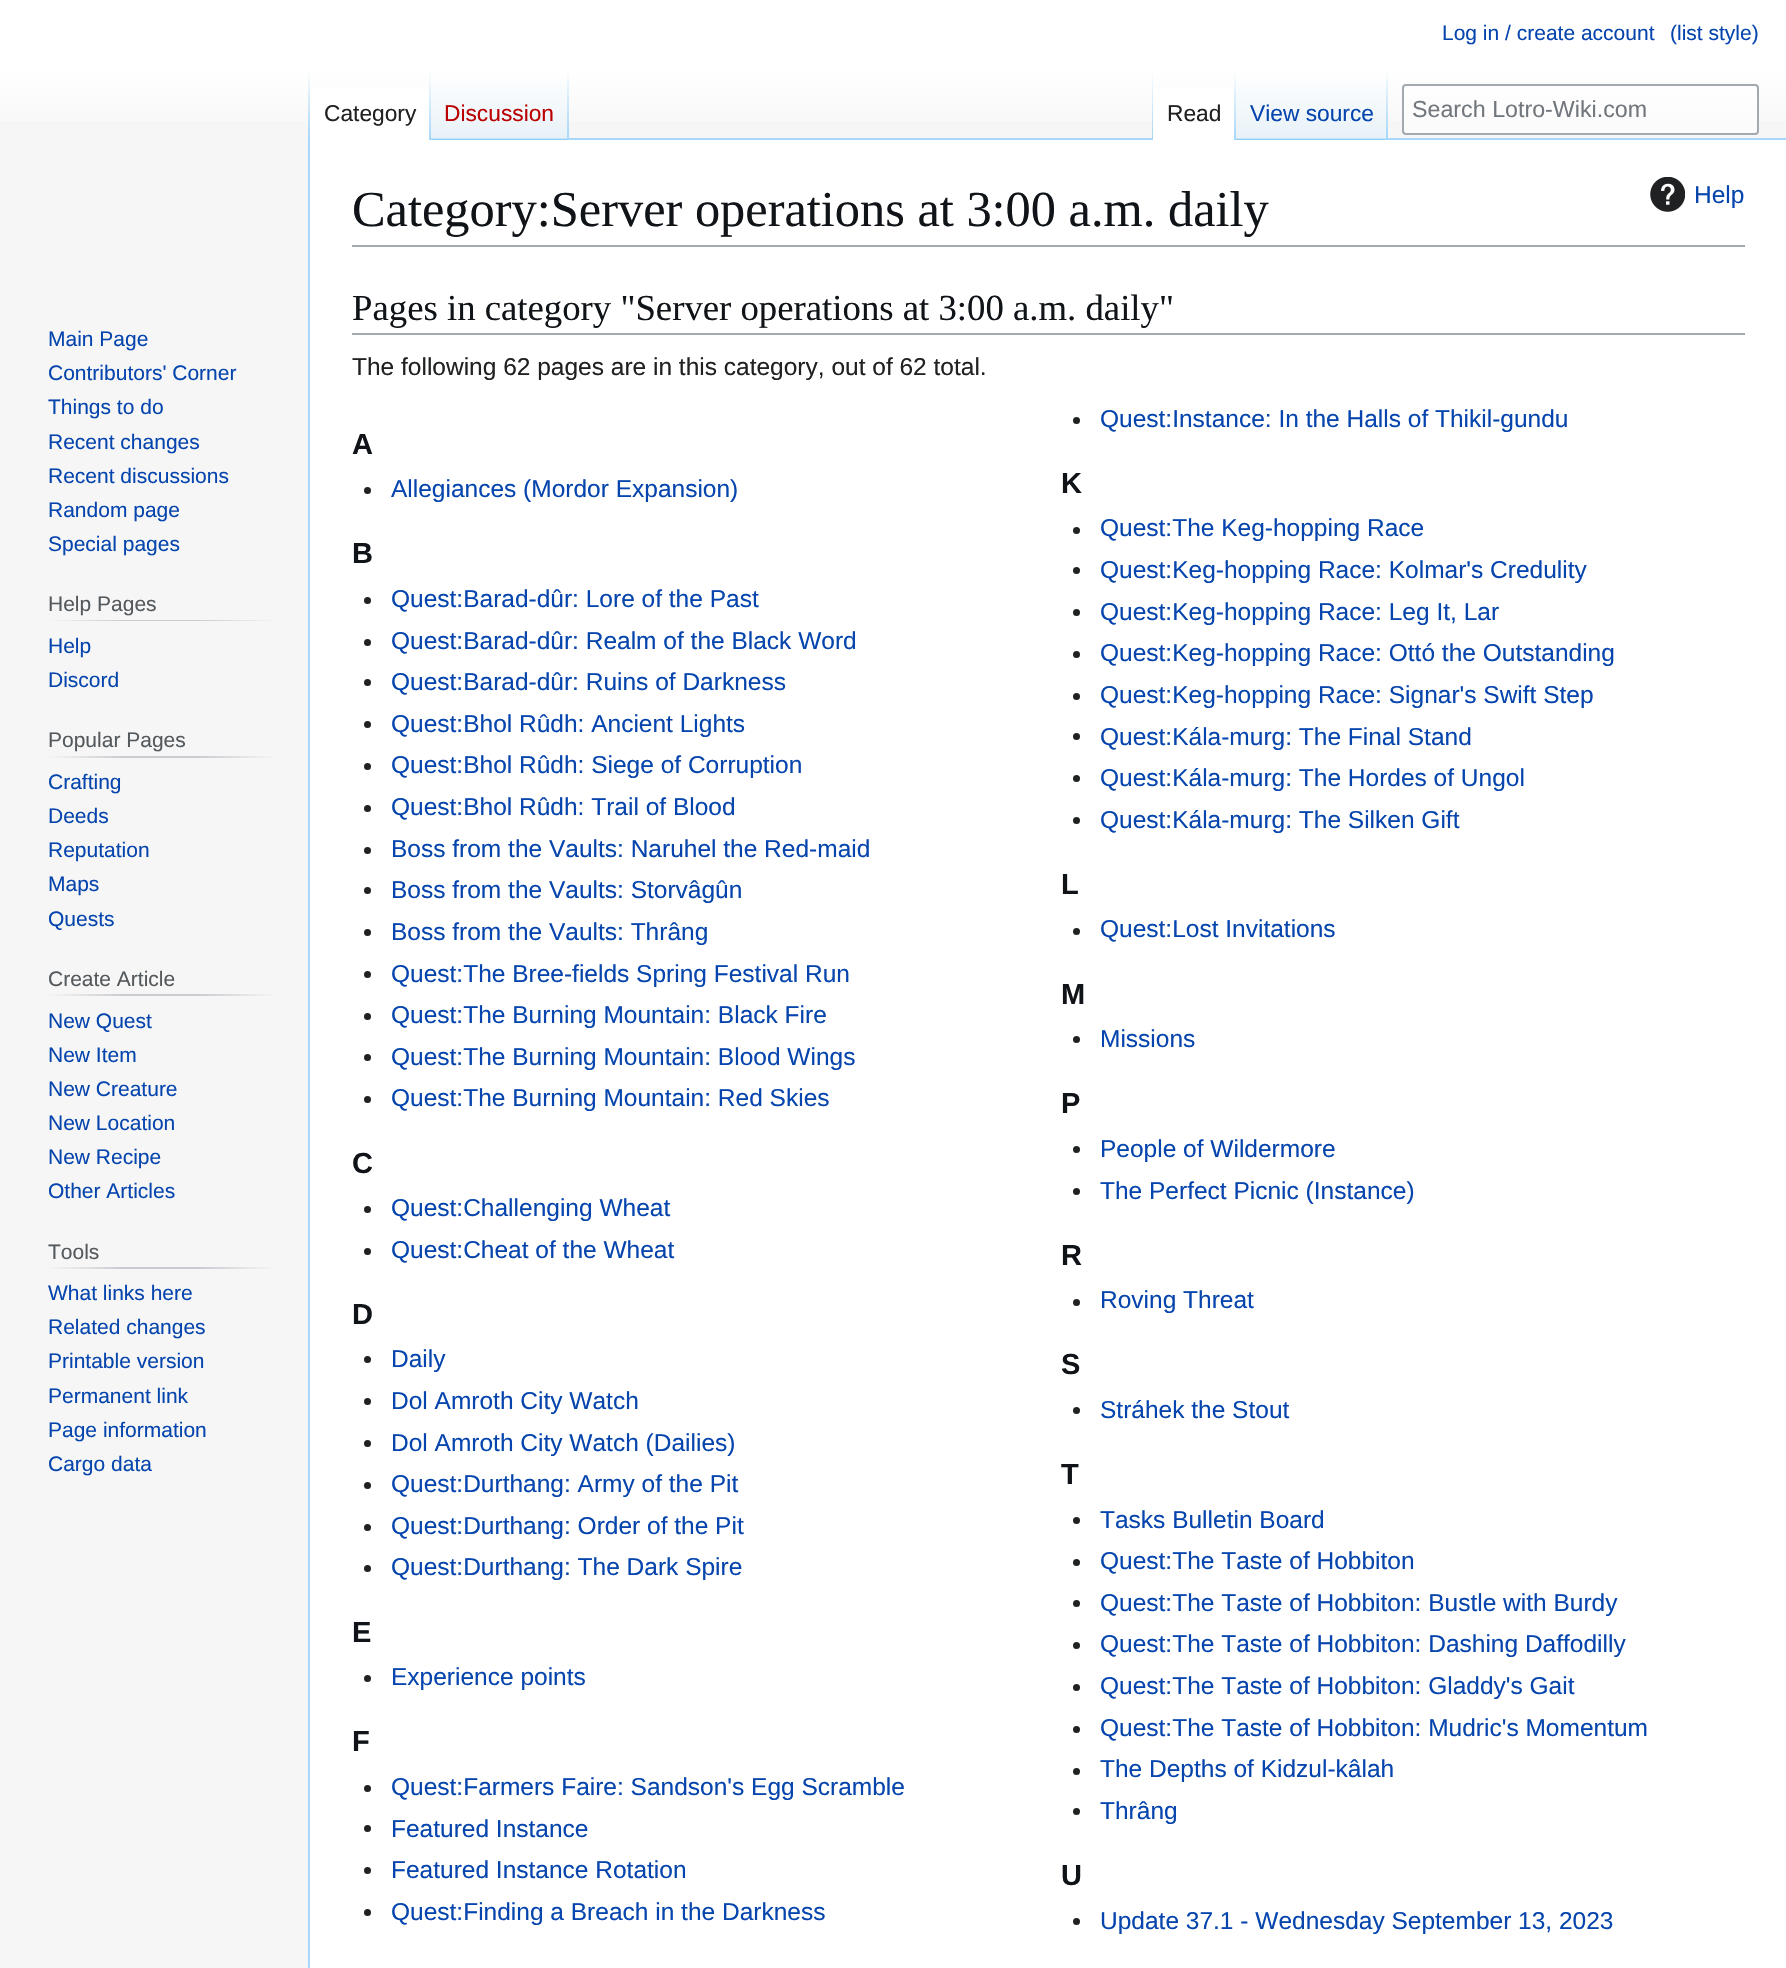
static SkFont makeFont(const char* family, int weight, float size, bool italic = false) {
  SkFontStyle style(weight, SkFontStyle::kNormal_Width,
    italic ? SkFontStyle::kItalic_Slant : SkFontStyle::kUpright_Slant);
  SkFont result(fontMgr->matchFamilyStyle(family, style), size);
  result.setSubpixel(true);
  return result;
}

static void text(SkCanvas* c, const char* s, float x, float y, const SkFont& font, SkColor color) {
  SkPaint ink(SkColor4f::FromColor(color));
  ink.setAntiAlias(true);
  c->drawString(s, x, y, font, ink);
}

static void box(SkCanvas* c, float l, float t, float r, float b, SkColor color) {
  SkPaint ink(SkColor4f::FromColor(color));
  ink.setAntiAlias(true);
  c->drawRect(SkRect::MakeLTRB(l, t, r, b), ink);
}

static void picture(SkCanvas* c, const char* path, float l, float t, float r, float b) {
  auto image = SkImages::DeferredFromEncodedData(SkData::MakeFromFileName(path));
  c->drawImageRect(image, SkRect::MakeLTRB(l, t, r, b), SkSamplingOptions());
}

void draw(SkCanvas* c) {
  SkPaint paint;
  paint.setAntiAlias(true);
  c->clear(0xfff6f6f6);
  {
    const SkColor colors[] = {0xffffffff, 0xfff6f6f6};
    const float stops[] = {0.5f, 1};
    const SkPoint ends[] = {{893, 0}, {893, 140}};
    paint.setShader(SkGradientShader::MakeLinear(ends, colors, stops, 2, SkTileMode::kClamp));
    paint.setAlpha(255);
  }
  c->drawRect(SkRect::MakeLTRB(0, 0, 1786, 121), paint);
  SkFont face1 = makeFont("Liberation Sans", 400, 21);
  text(c, "Log in / create account", 1442, 40, face1, 0xff0645ad);
  text(c, "(list style)", 1670, 40, face1, 0xff0645ad);
  box(c, 308, 138, 310, 1968, 0xffa7d7f9);
  {
    const SkColor colors[] = {0x00a7d7f9, 0xffa7d7f9};
    const float stops[] = {0, 1};
    const SkPoint ends[] = {{309, 70}, {309, 140}};
    paint.setShader(SkGradientShader::MakeLinear(ends, colors, stops, 2, SkTileMode::kClamp));
    paint.setAlpha(255);
  }
  c->drawRect(SkRect::MakeLTRB(308, 70, 310, 140), paint);
  box(c, 310, 89, 429, 140, 0xffffffff);
  {
    const SkColor colors[] = {0xffffffff, 0xffa7d7f9};
    const float stops[] = {0, 1};
    const SkPoint ends[] = {{430, 70}, {430, 140}};
    paint.setShader(SkGradientShader::MakeLinear(ends, colors, stops, 2, SkTileMode::kClamp));
    paint.setAlpha(255);
  }
  c->drawRect(SkRect::MakeLTRB(429, 70, 431, 140), paint);
  SkFont face2 = makeFont("Liberation Sans", 400, 22.75f);
  text(c, "Category", 324, 121, face2, 0xff202122);
  {
    const SkColor colors[] = {0xff77c1f6, 0xffe8f2f8, 0xffffffff};
    const float stops[] = {0, 0.03f, 1};
    const SkPoint ends[] = {{500, 140}, {500, 70}};
    paint.setShader(SkGradientShader::MakeLinear(ends, colors, stops, 3, SkTileMode::kClamp));
    paint.setAlpha(255);
  }
  c->drawRect(SkRect::MakeLTRB(431, 80, 569, 140), paint);
  {
    const SkColor colors[] = {0x00a7d7f9, 0xffa7d7f9};
    const float stops[] = {0, 1};
    const SkPoint ends[] = {{568, 70}, {568, 140}};
    paint.setShader(SkGradientShader::MakeLinear(ends, colors, stops, 2, SkTileMode::kClamp));
    paint.setAlpha(255);
  }
  c->drawRect(SkRect::MakeLTRB(567, 70, 569, 140), paint);
  text(c, "Discussion", 444, 121, face2, 0xffba0000);
  box(c, 569, 138, 1786, 140, 0xffa7d7f9);
  {
    const SkColor colors[] = {0x00a7d7f9, 0xffa7d7f9};
    const float stops[] = {0, 1};
    const SkPoint ends[] = {{1152, 70}, {1152, 140}};
    paint.setShader(SkGradientShader::MakeLinear(ends, colors, stops, 2, SkTileMode::kClamp));
    paint.setAlpha(255);
  }
  c->drawRect(SkRect::MakeLTRB(1152, 70, 1153, 140), paint);
  box(c, 1153, 89, 1234, 140, 0xffffffff);
  {
    const SkColor colors[] = {0xffffffff, 0xffa7d7f9};
    const float stops[] = {0, 1};
    const SkPoint ends[] = {{1235, 70}, {1235, 140}};
    paint.setShader(SkGradientShader::MakeLinear(ends, colors, stops, 2, SkTileMode::kClamp));
    paint.setAlpha(255);
  }
  c->drawRect(SkRect::MakeLTRB(1234, 70, 1236, 140), paint);
  text(c, "Read", 1167, 121, face2, 0xff202122);
  {
    const SkColor colors[] = {0xff77c1f6, 0xffe8f2f8, 0xffffffff};
    const float stops[] = {0, 0.03f, 1};
    const SkPoint ends[] = {{1312, 140}, {1312, 70}};
    paint.setShader(SkGradientShader::MakeLinear(ends, colors, stops, 3, SkTileMode::kClamp));
    paint.setAlpha(255);
  }
  c->drawRect(SkRect::MakeLTRB(1236, 80, 1388, 140), paint);
  {
    const SkColor colors[] = {0x00a7d7f9, 0xffa7d7f9};
    const float stops[] = {0, 1};
    const SkPoint ends[] = {{1387, 70}, {1387, 140}};
    paint.setShader(SkGradientShader::MakeLinear(ends, colors, stops, 2, SkTileMode::kClamp));
    paint.setAlpha(255);
  }
  c->drawRect(SkRect::MakeLTRB(1386, 70, 1388, 140), paint);
  text(c, "View source", 1250, 121, face2, 0xff0645ad);
  paint.setShader(nullptr);
  paint.setColor(0x80ffffff);
  c->drawRoundRect(SkRect::MakeLTRB(1403, 85, 1758, 134), 3, 3, paint);
  paint.setStyle(SkPaint::kStroke_Style);
  paint.setStrokeWidth(2);
  paint.setColor(0xffa2a9b1);
  c->drawRoundRect(SkRect::MakeLTRB(1403, 85, 1758, 134), 3, 3, paint);
  SkFont face3 = makeFont("Liberation Sans", 400, 23.25f);
  text(c, "Search Lotro-Wiki.com", 1412, 117, face3, 0xff72777d);
  text(c, "Main Page", 48, 346, face1, 0xff0645ad);
  text(c, "Contributors' Corner", 48, 380, face1, 0xff0645ad);
  text(c, "Things to do", 48, 414, face1, 0xff0645ad);
  text(c, "Recent changes", 48, 449, face1, 0xff0645ad);
  text(c, "Recent discussions", 48, 483, face1, 0xff0645ad);
  text(c, "Random page", 48, 517, face1, 0xff0645ad);
  text(c, "Special pages", 48, 551, face1, 0xff0645ad);
  paint.setStyle(SkPaint::kFill_Style);
  {
    const SkColor colors[] = {0xfff6f6f6, 0xffc8ccd1, 0xffc8ccd1, 0xfff6f6f6};
    const float stops[] = {0, 0.33f, 0.66f, 1};
    const SkPoint ends[] = {{47, 620}, {277, 620}};
    paint.setShader(SkGradientShader::MakeLinear(ends, colors, stops, 4, SkTileMode::kClamp));
    paint.setAlpha(255);
  }
  c->drawRect(SkRect::MakeLTRB(47, 620, 277, 621), paint);
  text(c, "Help Pages", 48, 611, face1, 0xff54595d);
  text(c, "Help", 48, 653, face1, 0xff0645ad);
  text(c, "Discord", 48, 687, face1, 0xff0645ad);
  {
    const SkColor colors[] = {0xfff6f6f6, 0xffc8ccd1, 0xffc8ccd1, 0xfff6f6f6};
    const float stops[] = {0, 0.33f, 0.66f, 1};
    const SkPoint ends[] = {{47, 757}, {277, 757}};
    paint.setShader(SkGradientShader::MakeLinear(ends, colors, stops, 4, SkTileMode::kClamp));
    paint.setAlpha(255);
  }
  c->drawRect(SkRect::MakeLTRB(47, 756, 277, 758), paint);
  text(c, "Popular Pages", 48, 747, face1, 0xff54595d);
  text(c, "Crafting", 48, 789, face1, 0xff0645ad);
  text(c, "Deeds", 48, 823, face1, 0xff0645ad);
  text(c, "Reputation", 48, 857, face1, 0xff0645ad);
  text(c, "Maps", 48, 891, face1, 0xff0645ad);
  text(c, "Quests", 48, 926, face1, 0xff0645ad);
  {
    const SkColor colors[] = {0xfff6f6f6, 0xffc8ccd1, 0xffc8ccd1, 0xfff6f6f6};
    const float stops[] = {0, 0.33f, 0.66f, 1};
    const SkPoint ends[] = {{47, 995}, {277, 995}};
    paint.setShader(SkGradientShader::MakeLinear(ends, colors, stops, 4, SkTileMode::kClamp));
    paint.setAlpha(255);
  }
  c->drawRect(SkRect::MakeLTRB(47, 994, 277, 996), paint);
  text(c, "Create Article", 48, 986, face1, 0xff54595d);
  text(c, "New Quest", 48, 1028, face1, 0xff0645ad);
  text(c, "New Item", 48, 1062, face1, 0xff0645ad);
  text(c, "New Creature", 48, 1096, face1, 0xff0645ad);
  text(c, "New Location", 48, 1130, face1, 0xff0645ad);
  text(c, "New Recipe", 48, 1164, face1, 0xff0645ad);
  text(c, "Other Articles", 48, 1198, face1, 0xff0645ad);
  {
    const SkColor colors[] = {0xfff6f6f6, 0xffc8ccd1, 0xffc8ccd1, 0xfff6f6f6};
    const float stops[] = {0, 0.33f, 0.66f, 1};
    const SkPoint ends[] = {{47, 1268}, {277, 1268}};
    paint.setShader(SkGradientShader::MakeLinear(ends, colors, stops, 4, SkTileMode::kClamp));
    paint.setAlpha(255);
  }
  c->drawRect(SkRect::MakeLTRB(47, 1267, 277, 1269), paint);
  text(c, "Tools", 48, 1259, face1, 0xff54595d);
  text(c, "What links here", 48, 1300, face1, 0xff0645ad);
  text(c, "Related changes", 48, 1334, face1, 0xff0645ad);
  text(c, "Printable version", 48, 1368, face1, 0xff0645ad);
  text(c, "Permanent link", 48, 1403, face1, 0xff0645ad);
  text(c, "Page information", 48, 1437, face1, 0xff0645ad);
  text(c, "Cargo data", 48, 1471, face1, 0xff0645ad);
  box(c, 310, 140, 1786, 1968, 0xffffffff);
  box(c, 352, 245, 1745, 247, 0xffa2a9b1);
  SkFont face4 = makeFont("Liberation Serif", 400, 50.4f);
  text(c, "Category:Server operations at 3:00 a.m. daily", 352, 226, face4, 0xff101418);
  picture(c, "img_01.png", 1650, 177, 1685, 212);
  SkFont face5 = makeFont("Liberation Sans", 400, 24.5f);
  text(c, "Help", 1694, 203, face5, 0xff0645ad);
  box(c, 352, 333, 1745, 335, 0xffa2a9b1);
  SkFont face6 = makeFont("Liberation Serif", 400, 36.75f);
  text(c, "Pages in category \"Server operations at 3:00 a.m. daily\"", 352, 320, face6, 0xff101418);
  text(c, "The following 62 pages are in this category, out of 62 total.", 352, 375, face5, 0xff202122);
  paint.setShader(nullptr);
  paint.setColor(0xff202122);
  c->drawCircle(1076.5f, 420.5f, 3.5f, paint);
  text(c, "Quest:Instance: In the Halls of Thikil-gundu", 1100, 427, face5, 0xff0645ad);
  SkFont face7 = makeFont("Liberation Sans", 700, 29);
  text(c, "A", 352, 454, face7, 0xff101418);
  c->drawCircle(367.5f, 490.5f, 3.5f, paint);
  text(c, "Allegiances (Mordor Expansion)", 391, 497, face5, 0xff0645ad);
  text(c, "K", 1061, 493, face7, 0xff101418);
  c->drawCircle(1076.5f, 530.5f, 3.5f, paint);
  text(c, "Quest:The Keg-hopping Race", 1100, 536, face5, 0xff0645ad);
  c->drawCircle(1076.5f, 570.5f, 3.5f, paint);
  text(c, "Quest:Keg-hopping Race: Kolmar's Credulity", 1100, 578, face5, 0xff0645ad);
  c->drawCircle(1076.5f, 612.5f, 3.5f, paint);
  text(c, "Quest:Keg-hopping Race: Leg It, Lar", 1100, 620, face5, 0xff0645ad);
  c->drawCircle(1076.5f, 654.5f, 3.5f, paint);
  text(c, "Quest:Keg-hopping Race: Ottó the Outstanding", 1100, 661, face5, 0xff0645ad);
  c->drawCircle(1076.5f, 696.5f, 3.5f, paint);
  text(c, "Quest:Keg-hopping Race: Signar's Swift Step", 1100, 703, face5, 0xff0645ad);
  c->drawCircle(1076.5f, 736.5f, 3.5f, paint);
  text(c, "Quest:Kála-murg: The Final Stand", 1100, 745, face5, 0xff0645ad);
  c->drawCircle(1076.5f, 778.5f, 3.5f, paint);
  text(c, "Quest:Kála-murg: The Hordes of Ungol", 1100, 786, face5, 0xff0645ad);
  c->drawCircle(1076.5f, 820.5f, 3.5f, paint);
  text(c, "Quest:Kála-murg: The Silken Gift", 1100, 828, face5, 0xff0645ad);
  text(c, "B", 352, 563, face7, 0xff101418);
  c->drawCircle(367.5f, 600.5f, 3.5f, paint);
  text(c, "Quest:Barad-dûr: Lore of the Past", 391, 607, face5, 0xff0645ad);
  c->drawCircle(367.5f, 642.5f, 3.5f, paint);
  text(c, "Quest:Barad-dûr: Realm of the Black Word", 391, 649, face5, 0xff0645ad);
  c->drawCircle(367.5f, 682.5f, 3.5f, paint);
  text(c, "Quest:Barad-dûr: Ruins of Darkness", 391, 690, face5, 0xff0645ad);
  c->drawCircle(367.5f, 724.5f, 3.5f, paint);
  text(c, "Quest:Bhol Rûdh: Ancient Lights", 391, 732, face5, 0xff0645ad);
  c->drawCircle(367.5f, 766.5f, 3.5f, paint);
  text(c, "Quest:Bhol Rûdh: Siege of Corruption", 391, 773, face5, 0xff0645ad);
  c->drawCircle(367.5f, 808.5f, 3.5f, paint);
  text(c, "Quest:Bhol Rûdh: Trail of Blood", 391, 815, face5, 0xff0645ad);
  c->drawCircle(367.5f, 850.5f, 3.5f, paint);
  text(c, "Boss from the Vaults: Naruhel the Red-maid", 391, 857, face5, 0xff0645ad);
  c->drawCircle(367.5f, 890.5f, 3.5f, paint);
  text(c, "Boss from the Vaults: Storvâgûn", 391, 898, face5, 0xff0645ad);
  c->drawCircle(367.5f, 932.5f, 3.5f, paint);
  text(c, "Boss from the Vaults: Thrâng", 391, 940, face5, 0xff0645ad);
  c->drawCircle(367.5f, 974.5f, 3.5f, paint);
  text(c, "Quest:The Bree-fields Spring Festival Run", 391, 982, face5, 0xff0645ad);
  c->drawCircle(367.5f, 1016.5f, 3.5f, paint);
  text(c, "Quest:The Burning Mountain: Black Fire", 391, 1023, face5, 0xff0645ad);
  c->drawCircle(367.5f, 1057.5f, 3.5f, paint);
  text(c, "Quest:The Burning Mountain: Blood Wings", 391, 1065, face5, 0xff0645ad);
  c->drawCircle(367.5f, 1099.5f, 3.5f, paint);
  text(c, "Quest:The Burning Mountain: Red Skies", 391, 1106, face5, 0xff0645ad);
  text(c, "L", 1061, 894, face7, 0xff101418);
  c->drawCircle(1076.5f, 931.5f, 3.5f, paint);
  text(c, "Quest:Lost Invitations", 1100, 937, face5, 0xff0645ad);
  text(c, "M", 1061, 1004, face7, 0xff101418);
  c->drawCircle(1076.5f, 1039.5f, 3.5f, paint);
  text(c, "Missions", 1100, 1047, face5, 0xff0645ad);
  text(c, "C", 352, 1173, face7, 0xff101418);
  c->drawCircle(367.5f, 1209.5f, 3.5f, paint);
  text(c, "Quest:Challenging Wheat", 391, 1216, face5, 0xff0645ad);
  c->drawCircle(367.5f, 1251.5f, 3.5f, paint);
  text(c, "Quest:Cheat of the Wheat", 391, 1258, face5, 0xff0645ad);
  text(c, "P", 1061, 1113, face7, 0xff101418);
  c->drawCircle(1076.5f, 1149.5f, 3.5f, paint);
  text(c, "People of Wildermore", 1100, 1157, face5, 0xff0645ad);
  c->drawCircle(1076.5f, 1191.5f, 3.5f, paint);
  text(c, "The Perfect Picnic (Instance)", 1100, 1199, face5, 0xff0645ad);
  text(c, "R", 1061, 1265, face7, 0xff101418);
  c->drawCircle(1076.5f, 1302.5f, 3.5f, paint);
  text(c, "Roving Threat", 1100, 1308, face5, 0xff0645ad);
  text(c, "D", 352, 1324, face7, 0xff101418);
  c->drawCircle(367.5f, 1359.5f, 3.5f, paint);
  text(c, "Daily", 391, 1367, face5, 0xff0645ad);
  c->drawCircle(367.5f, 1401.5f, 3.5f, paint);
  text(c, "Dol Amroth City Watch", 391, 1409, face5, 0xff0645ad);
  c->drawCircle(367.5f, 1443.5f, 3.5f, paint);
  text(c, "Dol Amroth City Watch (Dailies)", 391, 1451, face5, 0xff0645ad);
  c->drawCircle(367.5f, 1485.5f, 3.5f, paint);
  text(c, "Quest:Durthang: Army of the Pit", 391, 1492, face5, 0xff0645ad);
  c->drawCircle(367.5f, 1527.5f, 3.5f, paint);
  text(c, "Quest:Durthang: Order of the Pit", 391, 1534, face5, 0xff0645ad);
  c->drawCircle(367.5f, 1568.5f, 3.5f, paint);
  text(c, "Quest:Durthang: The Dark Spire", 391, 1575, face5, 0xff0645ad);
  text(c, "S", 1061, 1374, face7, 0xff101418);
  c->drawCircle(1076.5f, 1410.5f, 3.5f, paint);
  text(c, "Stráhek the Stout", 1100, 1418, face5, 0xff0645ad);
  text(c, "E", 352, 1642, face7, 0xff101418);
  c->drawCircle(367.5f, 1678.5f, 3.5f, paint);
  text(c, "Experience points", 391, 1685, face5, 0xff0645ad);
  text(c, "T", 1061, 1484, face7, 0xff101418);
  c->drawCircle(1076.5f, 1520.5f, 3.5f, paint);
  text(c, "Tasks Bulletin Board", 1100, 1528, face5, 0xff0645ad);
  c->drawCircle(1076.5f, 1562.5f, 3.5f, paint);
  text(c, "Quest:The Taste of Hobbiton", 1100, 1569, face5, 0xff0645ad);
  c->drawCircle(1076.5f, 1603.5f, 3.5f, paint);
  text(c, "Quest:The Taste of Hobbiton: Bustle with Burdy", 1100, 1611, face5, 0xff0645ad);
  c->drawCircle(1076.5f, 1645.5f, 3.5f, paint);
  text(c, "Quest:The Taste of Hobbiton: Dashing Daffodilly", 1100, 1652, face5, 0xff0645ad);
  c->drawCircle(1076.5f, 1687.5f, 3.5f, paint);
  text(c, "Quest:The Taste of Hobbiton: Gladdy's Gait", 1100, 1694, face5, 0xff0645ad);
  c->drawCircle(1076.5f, 1729.5f, 3.5f, paint);
  text(c, "Quest:The Taste of Hobbiton: Mudric's Momentum", 1100, 1736, face5, 0xff0645ad);
  c->drawCircle(1076.5f, 1771.5f, 3.5f, paint);
  text(c, "The Depths of Kidzul-kâlah", 1100, 1777, face5, 0xff0645ad);
  c->drawCircle(1076.5f, 1811.5f, 3.5f, paint);
  text(c, "Thrâng", 1100, 1819, face5, 0xff0645ad);
  text(c, "F", 352, 1751, face7, 0xff101418);
  c->drawCircle(367.5f, 1788.5f, 3.5f, paint);
  text(c, "Quest:Farmers Faire: Sandson's Egg Scramble", 391, 1795, face5, 0xff0645ad);
  c->drawCircle(367.5f, 1828.5f, 3.5f, paint);
  text(c, "Featured Instance", 391, 1837, face5, 0xff0645ad);
  c->drawCircle(367.5f, 1870.5f, 3.5f, paint);
  text(c, "Featured Instance Rotation", 391, 1878, face5, 0xff0645ad);
  c->drawCircle(367.5f, 1912.5f, 3.5f, paint);
  text(c, "Quest:Finding a Breach in the Darkness", 391, 1920, face5, 0xff0645ad);
  text(c, "U", 1061, 1885, face7, 0xff101418);
  c->drawCircle(1076.5f, 1921.5f, 3.5f, paint);
  text(c, "Update 37.1 - Wednesday September 13, 2023", 1100, 1929, face5, 0xff0645ad);
}
